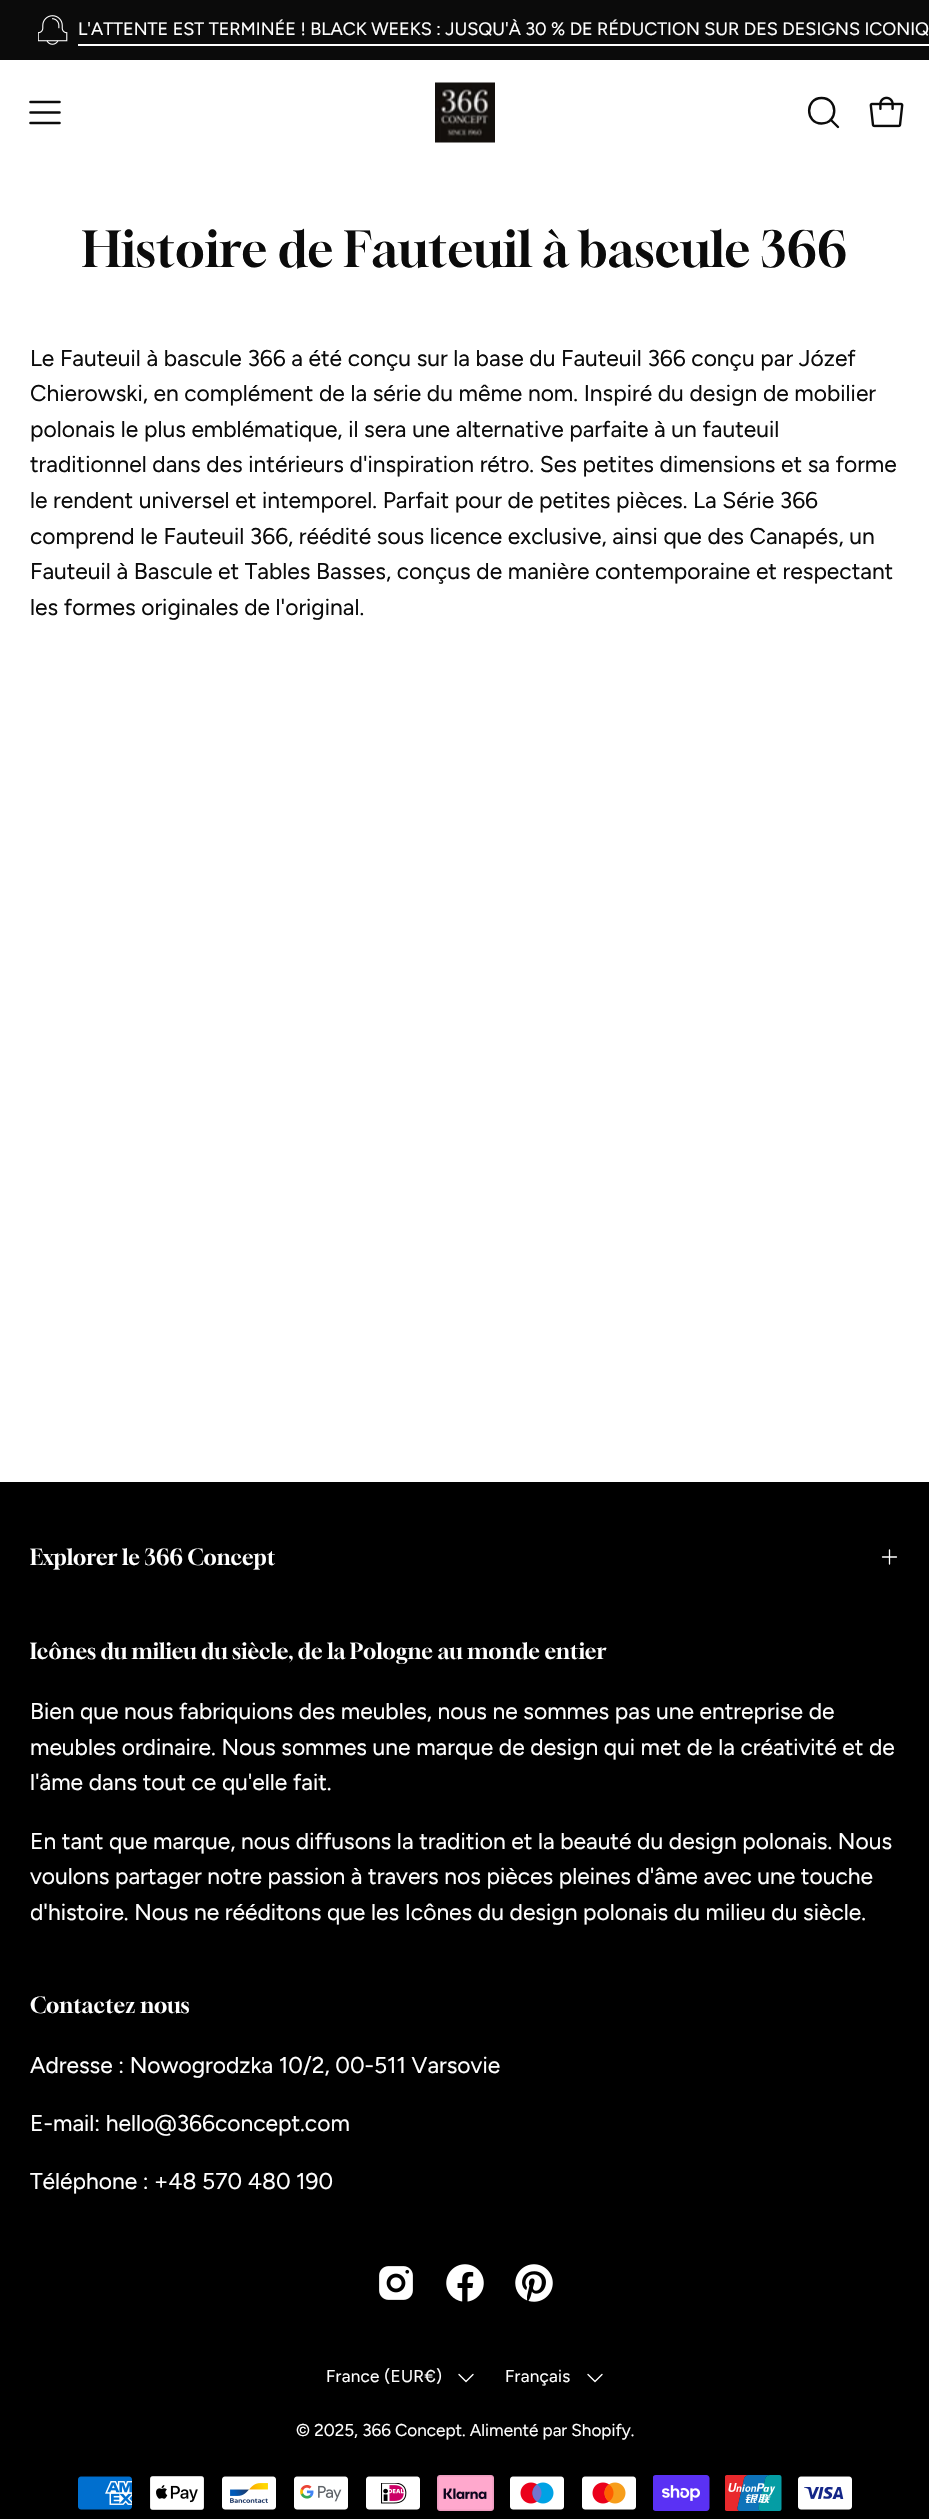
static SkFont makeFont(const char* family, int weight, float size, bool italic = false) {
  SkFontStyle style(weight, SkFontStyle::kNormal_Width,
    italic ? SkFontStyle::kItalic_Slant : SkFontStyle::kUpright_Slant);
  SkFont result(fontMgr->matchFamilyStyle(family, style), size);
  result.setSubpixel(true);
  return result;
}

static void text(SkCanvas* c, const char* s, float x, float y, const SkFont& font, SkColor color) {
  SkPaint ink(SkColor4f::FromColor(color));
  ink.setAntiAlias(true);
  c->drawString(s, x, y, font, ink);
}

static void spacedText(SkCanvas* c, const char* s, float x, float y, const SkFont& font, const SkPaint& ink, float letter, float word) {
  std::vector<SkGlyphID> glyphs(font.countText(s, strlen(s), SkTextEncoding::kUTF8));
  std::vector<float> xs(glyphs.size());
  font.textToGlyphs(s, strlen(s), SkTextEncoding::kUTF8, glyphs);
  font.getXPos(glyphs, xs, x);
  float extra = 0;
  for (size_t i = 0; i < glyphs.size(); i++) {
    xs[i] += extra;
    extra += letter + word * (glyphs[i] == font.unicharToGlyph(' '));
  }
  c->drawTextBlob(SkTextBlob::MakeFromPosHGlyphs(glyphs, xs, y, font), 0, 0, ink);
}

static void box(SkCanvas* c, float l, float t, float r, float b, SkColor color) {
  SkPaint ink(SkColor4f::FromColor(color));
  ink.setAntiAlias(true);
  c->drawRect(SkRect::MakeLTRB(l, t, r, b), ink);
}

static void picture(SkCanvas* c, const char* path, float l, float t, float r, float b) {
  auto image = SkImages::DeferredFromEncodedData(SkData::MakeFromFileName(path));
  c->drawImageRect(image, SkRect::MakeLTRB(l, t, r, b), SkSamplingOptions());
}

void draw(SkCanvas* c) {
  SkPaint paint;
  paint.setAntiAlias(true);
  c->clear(0xffffffff);
  box(c, 0, 0, 929, 60, 0xff0b0b0b);
  picture(c, "img_01.png", 38, 15, 68, 45);
  SkFont face1 = makeFont("Figtree", 400, 18);
  text(c, "L'ATTENTE EST TERMINÉE ! BLACK WEEKS : JUSQU'À 30 % DE RÉDUCTION SUR DES DESIGNS ICONIQ", 78, 35, face1, 0xffffffff);
  box(c, 78, 44, 929, 46, 0xffffffff);
  paint.setStyle(SkPaint::kStroke_Style);
  paint.setStrokeWidth(2.6f);
  paint.setStrokeCap(SkPaint::kRound_Cap);
  paint.setStrokeJoin(SkPaint::kRound_Join);
  paint.setColor(0xff0b0b0b);
  c->drawPath(SkPathBuilder().moveTo(30.5f, 112.5f).lineTo(59.5f, 112.5f).moveTo(30.5f, 102).lineTo(59.5f, 102).moveTo(30.5f, 123).lineTo(59.5f, 123).detach(), paint);
  picture(c, "img_02.png", 435, 82, 495, 143);
  paint.setStrokeWidth(2.4f);
  c->drawPath(SkPathBuilder().moveTo(821.5f, 123.5f).cubicTo(838.5f, 123.5f, 838.5f, 98, 821.5f, 98).cubicTo(805, 98, 805, 123.5f, 821.5f, 123.5f).close().moveTo(830.5f, 119.5f).lineTo(838, 127).detach(), paint);
  picture(c, "img_03.png", 869, 96, 904, 128);
  SkFont face2 = makeFont("Gloock", 400, 48.6f);
  text(c, "Histoire de Fauteuil à bascule 366", 82, 267, face2, 0xff0b0b0b);
  SkFont face3 = makeFont("Figtree", 400, 22.8f);
  text(c, "Le Fauteuil à bascule 366 a été conçu sur la base du Fauteuil 366 conçu par Józef", 30, 366, face3, 0xff0b0b0b);
  text(c, "Chierowski, en complément de la série du même nom. Inspiré du design de mobilier", 30, 401, face3, 0xff0b0b0b);
  text(c, "polonais le plus emblématique, il sera une alternative parfaite à un fauteuil", 30, 437, face3, 0xff0b0b0b);
  text(c, "traditionnel dans des intérieurs d'inspiration rétro. Ses petites dimensions et sa forme", 30, 472, face3, 0xff0b0b0b);
  text(c, "le rendent universel et intemporel. Parfait pour de petites pièces. La Série 366", 30, 508, face3, 0xff0b0b0b);
  text(c, "comprend le Fauteuil 366, réédité sous licence exclusive, ainsi que des Canapés, un", 30, 544, face3, 0xff0b0b0b);
  text(c, "Fauteuil à Bascule et Tables Basses, conçus de manière contemporaine et respectant", 30, 579, face3, 0xff0b0b0b);
  text(c, "les formes originales de l'original.", 30, 615, face3, 0xff0b0b0b);
  box(c, 0, 1482, 929, 2519, 0xff000000);
  SkFont face4 = makeFont("Gloock", 400, 21.6f);
  text(c, "Explorer le 366 Concept", 30, 1565, face4, 0xffffffff);
  paint.setStrokeWidth(1.3f);
  paint.setColor(0xffffffff);
  c->drawPath(SkPathBuilder().moveTo(882.5f, 1557).lineTo(896.5f, 1557).moveTo(889.5f, 1550).lineTo(889.5f, 1564).detach(), paint);
  text(c, "Icônes du milieu du siècle, de la Pologne au monde entier", 30, 1659, face4, 0xffffffff);
  text(c, "Bien que nous fabriquions des meubles, nous ne sommes pas une entreprise de", 30, 1719, face3, 0xffffffff);
  text(c, "meubles ordinaire. Nous sommes une marque de design qui met de la créativité et de", 30, 1755, face3, 0xffffffff);
  text(c, "l'âme dans tout ce qu'elle fait.", 30, 1790, face3, 0xffffffff);
  text(c, "En tant que marque, nous diffusons la tradition et la beauté du design polonais. Nous", 30, 1849, face3, 0xffffffff);
  text(c, "voulons partager notre passion à travers nos pièces pleines d'âme avec une touche", 30, 1884, face3, 0xffffffff);
  text(c, "d'histoire. Nous ne rééditons que les Icônes du design polonais du milieu du siècle.", 30, 1920, face3, 0xffffffff);
  text(c, "Contactez nous", 30, 2013, face4, 0xffffffff);
  text(c, "Adresse : Nowogrodzka 10/2, 00-511 Varsovie", 30, 2073, face3, 0xffffffff);
  text(c, "E-mail: hello@366concept.com", 30, 2131, face3, 0xffffffff);
  text(c, "Téléphone : +48 570 480 190", 30, 2189, face3, 0xffffffff);
  picture(c, "img_04.png", 379, 2266, 413, 2300);
  picture(c, "img_05.png", 446, 2264, 484, 2302);
  picture(c, "img_06.png", 515, 2264, 553, 2302);
  SkFont face5 = makeFont("Figtree", 400, 17.1f);
  paint.setStyle(SkPaint::kFill_Style);
  spacedText(c, "France (EUR€)", 326, 2382, face5, paint, 0.3f, 0);
  paint.setStyle(SkPaint::kStroke_Style);
  paint.setStrokeWidth(1.4f);
  c->drawPath(SkPathBuilder().moveTo(473, 2374.5f).lineTo(466, 2381.5f).lineTo(459, 2374.5f).detach(), paint);
  paint.setStyle(SkPaint::kFill_Style);
  spacedText(c, "Français", 505, 2382, face5, paint, 0.3f, 0);
  paint.setStyle(SkPaint::kStroke_Style);
  c->drawPath(SkPathBuilder().moveTo(602, 2374.5f).lineTo(595, 2381.5f).lineTo(588, 2374.5f).detach(), paint);
  text(c, "© 2025, 366 Concept. Alimenté par Shopify.", 296, 2436, face5, 0xffffffff);
  picture(c, "img_07.png", 78, 2476, 132, 2510);
  picture(c, "img_08.png", 150, 2476, 204, 2510);
  picture(c, "img_09.png", 222, 2476, 276, 2510);
  picture(c, "img_10.png", 294, 2476, 348, 2510);
  picture(c, "img_11.png", 366, 2476, 420, 2510);
  picture(c, "img_12.png", 437, 2475, 494, 2511);
  picture(c, "img_13.png", 510, 2476, 564, 2510);
  picture(c, "img_14.png", 582, 2476, 636, 2510);
  picture(c, "img_15.png", 653, 2475, 710, 2511);
  picture(c, "img_16.png", 725, 2475, 782, 2511);
  picture(c, "img_17.png", 798, 2476, 852, 2510);
}
